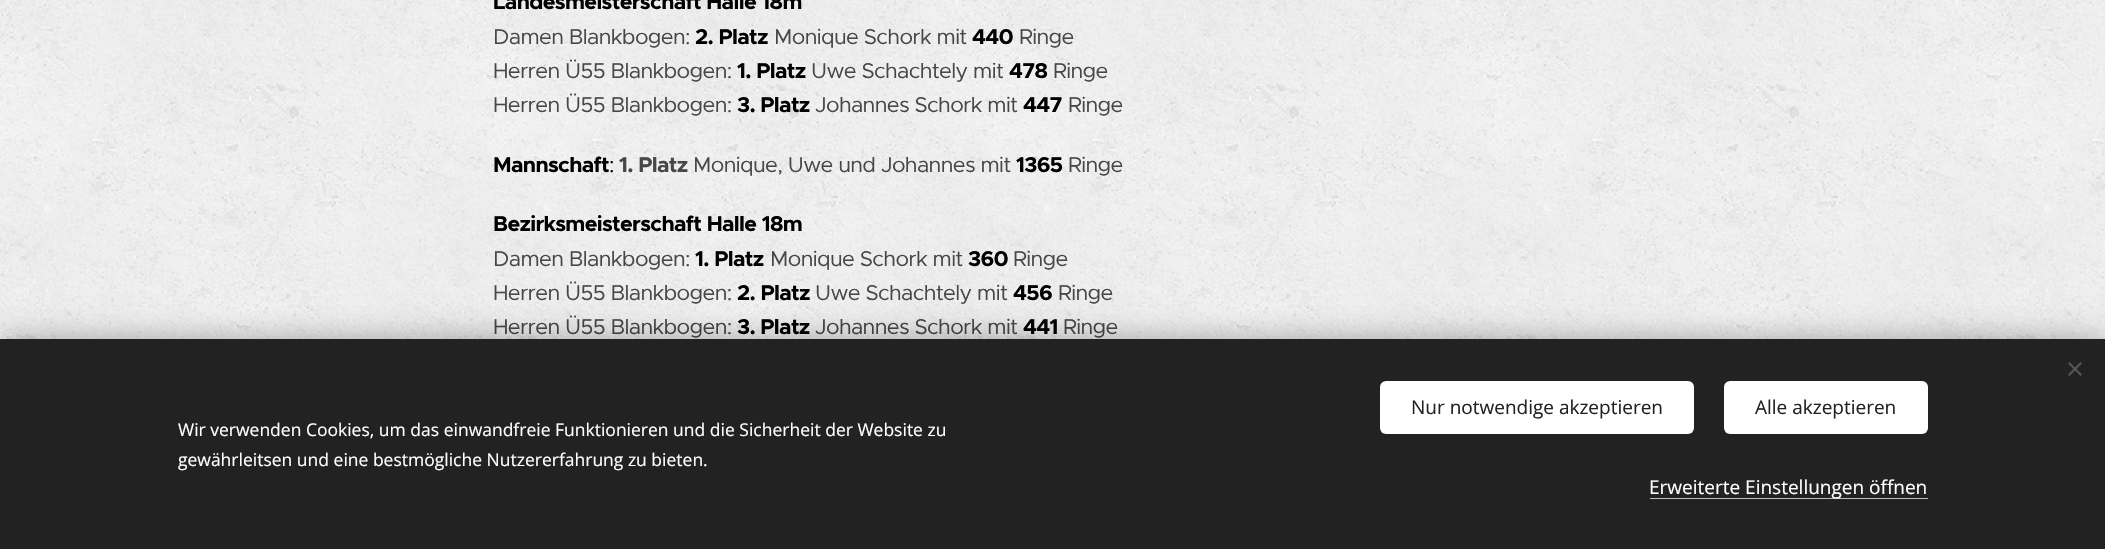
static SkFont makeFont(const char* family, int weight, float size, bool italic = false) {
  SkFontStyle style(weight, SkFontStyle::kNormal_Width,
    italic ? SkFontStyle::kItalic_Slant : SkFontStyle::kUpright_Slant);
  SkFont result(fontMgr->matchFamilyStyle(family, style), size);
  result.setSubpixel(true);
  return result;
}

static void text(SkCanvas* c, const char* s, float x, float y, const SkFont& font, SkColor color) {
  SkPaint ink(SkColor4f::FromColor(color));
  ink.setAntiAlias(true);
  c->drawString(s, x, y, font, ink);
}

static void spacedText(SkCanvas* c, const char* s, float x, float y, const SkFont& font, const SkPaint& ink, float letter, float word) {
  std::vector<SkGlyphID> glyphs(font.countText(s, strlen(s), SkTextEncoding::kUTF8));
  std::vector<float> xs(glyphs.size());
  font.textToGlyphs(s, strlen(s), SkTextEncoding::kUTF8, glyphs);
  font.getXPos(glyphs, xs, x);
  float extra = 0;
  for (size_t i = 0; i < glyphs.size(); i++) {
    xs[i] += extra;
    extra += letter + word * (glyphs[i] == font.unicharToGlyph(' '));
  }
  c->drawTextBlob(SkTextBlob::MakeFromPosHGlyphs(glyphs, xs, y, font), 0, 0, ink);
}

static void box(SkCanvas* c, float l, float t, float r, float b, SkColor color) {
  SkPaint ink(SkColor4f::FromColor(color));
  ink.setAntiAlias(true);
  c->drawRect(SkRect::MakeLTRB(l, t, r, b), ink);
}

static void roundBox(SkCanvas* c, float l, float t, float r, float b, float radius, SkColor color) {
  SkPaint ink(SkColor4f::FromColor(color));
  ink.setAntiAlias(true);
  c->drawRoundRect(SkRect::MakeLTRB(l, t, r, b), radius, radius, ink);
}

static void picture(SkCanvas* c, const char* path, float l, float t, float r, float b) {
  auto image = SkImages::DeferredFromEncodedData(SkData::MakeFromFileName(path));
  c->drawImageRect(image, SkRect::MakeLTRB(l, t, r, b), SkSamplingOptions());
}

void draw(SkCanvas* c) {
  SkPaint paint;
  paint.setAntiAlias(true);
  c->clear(0xffffffff);
  picture(c, "img_01.png", 0, 0, 2105, 339);
  SkFont face1 = makeFont("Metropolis", 700, 21.5f);
  paint.setColor(0xff000000);
  spacedText(c, "Landesmeisterschaft Halle 18m", 493, 9, face1, paint, -0.65f, 0);
  SkFont face2 = makeFont("Metropolis", 400, 21.5f);
  paint.setColor(0xff474747);
  spacedText(c, "Damen Blankbogen:", 493, 44, face2, paint, -0.65f, 0);
  paint.setColor(0xff000000);
  spacedText(c, "2. Platz", 695, 44, face1, paint, -0.65f, 0);
  paint.setColor(0xff474747);
  spacedText(c, "Monique Schork mit", 774, 44, face2, paint, -0.65f, 0);
  paint.setColor(0xff000000);
  spacedText(c, "440", 972, 44, face1, paint, -0.65f, 0);
  paint.setColor(0xff474747);
  spacedText(c, "Ringe", 1019, 44, face2, paint, -0.65f, 0);
  spacedText(c, "Herren Ü55 Blankbogen:", 493, 78, face2, paint, -0.65f, 0);
  paint.setColor(0xff000000);
  spacedText(c, "1. Platz", 737, 78, face1, paint, -0.65f, 0);
  paint.setColor(0xff474747);
  spacedText(c, "Uwe Schachtely mit", 811, 78, face2, paint, -0.65f, 0);
  paint.setColor(0xff000000);
  spacedText(c, "478", 1009, 78, face1, paint, -0.65f, 0);
  paint.setColor(0xff474747);
  spacedText(c, "Ringe", 1053, 78, face2, paint, -0.65f, 0);
  spacedText(c, "Herren Ü55 Blankbogen:", 493, 112, face2, paint, -0.65f, 0);
  paint.setColor(0xff000000);
  spacedText(c, "3. Platz", 737, 112, face1, paint, -0.65f, 0);
  paint.setColor(0xff474747);
  spacedText(c, "Johannes Schork mit", 815, 112, face2, paint, -0.65f, 0);
  paint.setColor(0xff000000);
  spacedText(c, "447", 1023, 112, face1, paint, -0.65f, 0);
  paint.setColor(0xff474747);
  spacedText(c, "Ringe", 1068, 112, face2, paint, -0.65f, 0);
  paint.setColor(0xff000000);
  spacedText(c, "Mannschaft", 493, 172, face1, paint, -0.65f, 0);
  spacedText(c, ":", 609, 172, face2, paint, -0.65f, 0);
  paint.setColor(0xff474747);
  spacedText(c, "1. Platz", 619, 172, face1, paint, -0.65f, 0);
  spacedText(c, "Monique, Uwe und Johannes mit", 693, 172, face2, paint, -0.65f, 0);
  paint.setColor(0xff000000);
  spacedText(c, "1365", 1016, 172, face1, paint, -0.65f, 0);
  paint.setColor(0xff474747);
  spacedText(c, "Ringe", 1068, 172, face2, paint, -0.65f, 0);
  paint.setColor(0xff000000);
  spacedText(c, "Bezirksmeisterschaft Halle 18m", 493, 231, face1, paint, -0.65f, 0);
  paint.setColor(0xff474747);
  spacedText(c, "Damen Blankbogen:", 493, 266, face2, paint, -0.65f, 0);
  paint.setColor(0xff000000);
  spacedText(c, "1. Platz", 695, 266, face1, paint, -0.65f, 0);
  paint.setColor(0xff474747);
  spacedText(c, "Monique Schork mit", 770, 266, face2, paint, -0.65f, 0);
  paint.setColor(0xff000000);
  spacedText(c, "360", 968, 266, face1, paint, -0.65f, 0);
  paint.setColor(0xff474747);
  spacedText(c, "Ringe", 1013, 266, face2, paint, -0.65f, 0);
  spacedText(c, "Herren Ü55 Blankbogen:", 493, 300, face2, paint, -0.65f, 0);
  paint.setColor(0xff000000);
  spacedText(c, "2. Platz", 737, 300, face1, paint, -0.65f, 0);
  paint.setColor(0xff474747);
  spacedText(c, "Uwe Schachtely mit", 815, 300, face2, paint, -0.65f, 0);
  paint.setColor(0xff000000);
  spacedText(c, "456", 1013, 300, face1, paint, -0.65f, 0);
  paint.setColor(0xff474747);
  spacedText(c, "Ringe", 1058, 300, face2, paint, -0.65f, 0);
  spacedText(c, "Herren Ü55 Blankbogen:", 493, 334, face2, paint, -0.65f, 0);
  paint.setColor(0xff000000);
  spacedText(c, "3. Platz", 737, 334, face1, paint, -0.65f, 0);
  paint.setColor(0xff474747);
  spacedText(c, "Johannes Schork mit", 815, 334, face2, paint, -0.65f, 0);
  paint.setColor(0xff000000);
  spacedText(c, "441", 1023, 334, face1, paint, -0.65f, 0);
  paint.setColor(0xff474747);
  spacedText(c, "Ringe", 1063, 334, face2, paint, -0.65f, 0);
  paint.setColor(0x54000000);
  paint.setMaskFilter(SkMaskFilter::MakeBlur(kNormal_SkBlurStyle, 15.5f));
  c->drawRect(SkRect::MakeLTRB(0, 339, 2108, 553), paint);
  paint.setMaskFilter(nullptr);
  box(c, 0, 339, 2105, 549, 0xff222222);
  paint.setColor(0xff555555);
  c->drawPath(SkPathBuilder().moveTo(2068, 374.5f).lineTo(2080.5f, 362).lineTo(2082, 363.5f).lineTo(2069.5f, 376).close().detach(), paint);
  c->drawPath(SkPathBuilder().moveTo(2069.5f, 362).lineTo(2082, 374.5f).lineTo(2080.5f, 376).lineTo(2068, 363.5f).close().detach(), paint);
  SkFont face3 = makeFont("Open Sans", 400, 17.5f);
  text(c, "Wir verwenden Cookies, um das einwandfreie Funktionieren und die Sicherheit der Website zu", 178, 436, face3, 0xffffffff);
  text(c, "gewährleitsen und eine bestmögliche Nutzererfahrung zu bieten.", 178, 466, face3, 0xffffffff);
  roundBox(c, 1380, 381, 1694, 434, 6, 0xffffffff);
  SkFont face4 = makeFont("Open Sans", 400, 19);
  text(c, "Nur notwendige akzeptieren", 1411, 414, face4, 0xff222222);
  roundBox(c, 1724, 381, 1928, 434, 6, 0xffffffff);
  text(c, "Alle akzeptieren", 1755, 414, face4, 0xff222222);
  box(c, 1650, 498, 1928, 499, 0xffbdbdbd);
  text(c, "Erweiterte Einstellungen öffnen", 1649, 494, face4, 0xffffffff);
}
